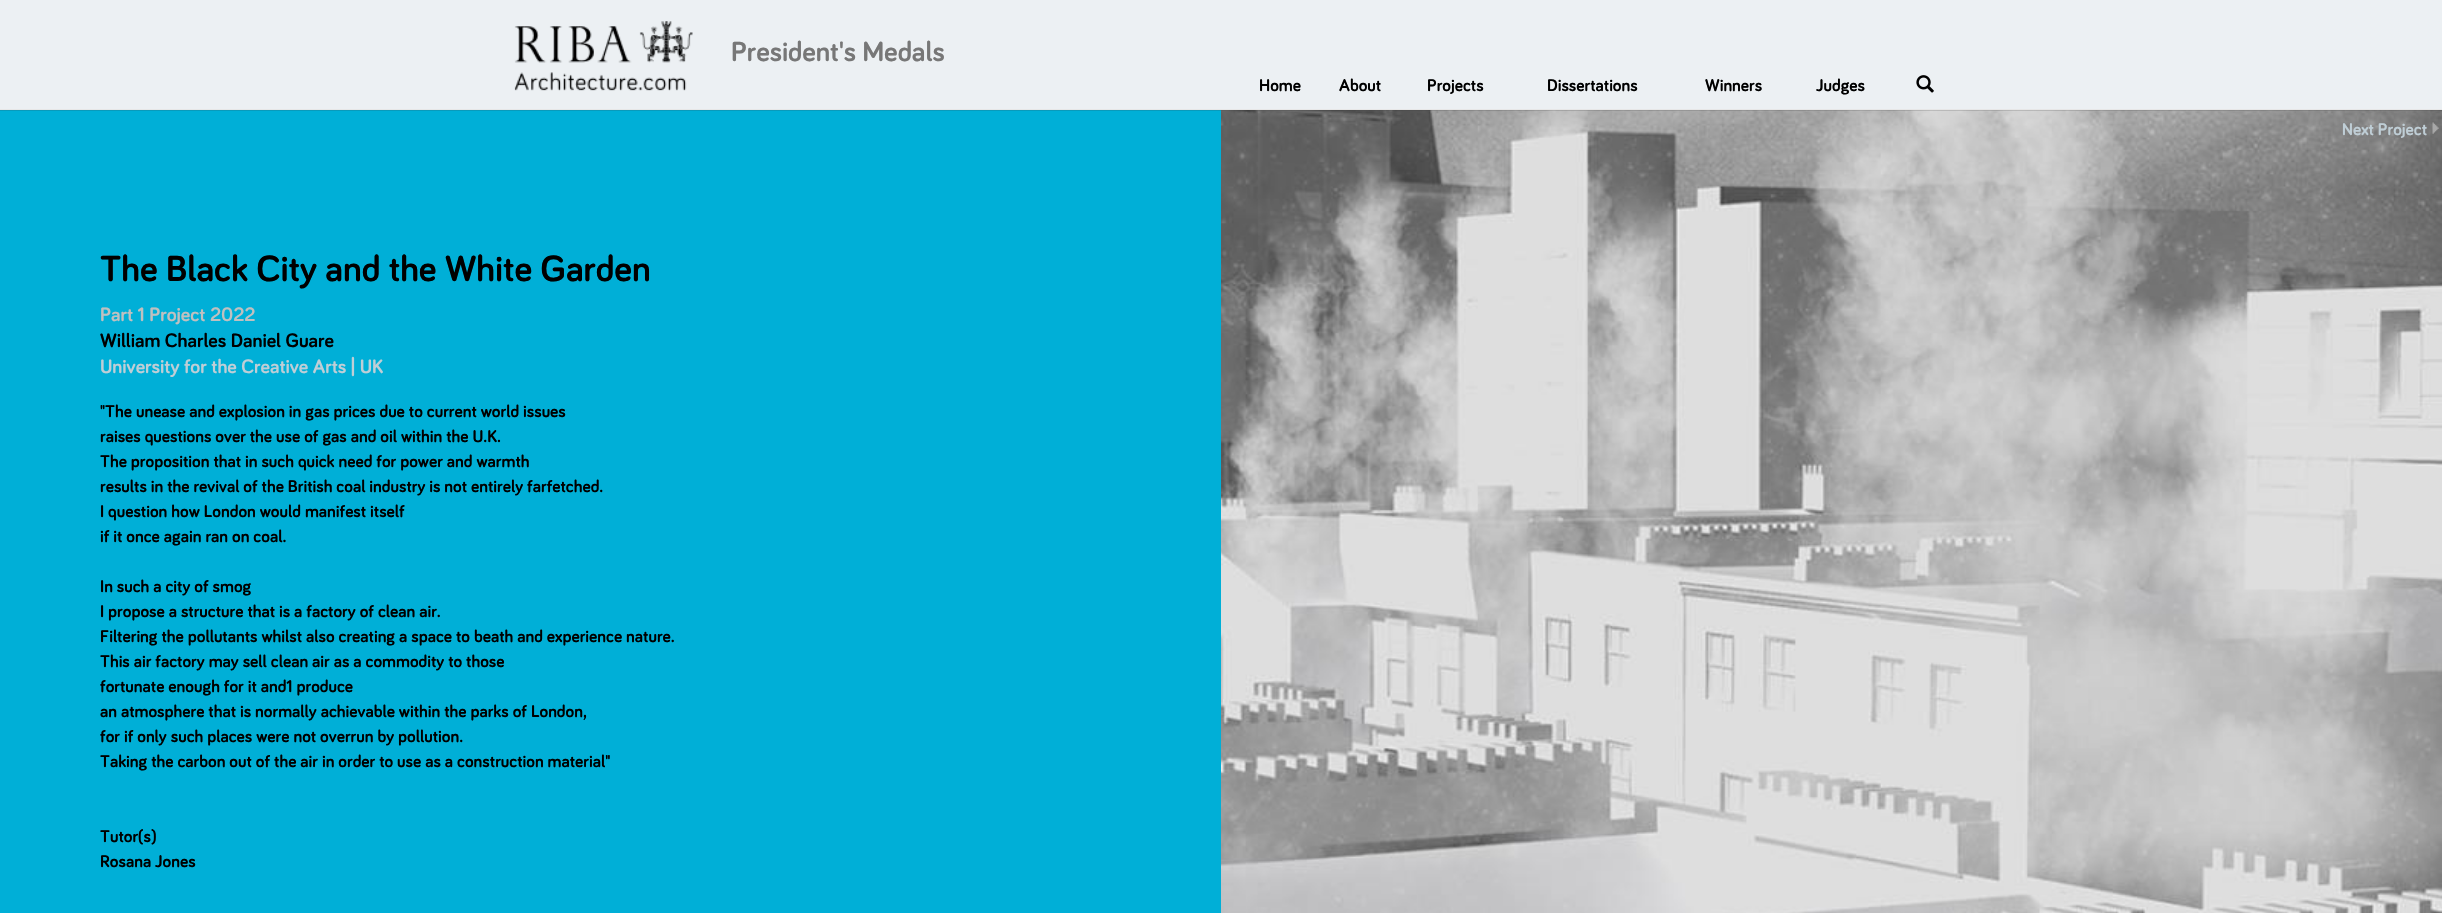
static SkFont makeFont(const char* family, int weight, float size, bool italic = false) {
  SkFontStyle style(weight, SkFontStyle::kNormal_Width,
    italic ? SkFontStyle::kItalic_Slant : SkFontStyle::kUpright_Slant);
  SkFont result(fontMgr->matchFamilyStyle(family, style), size);
  result.setSubpixel(true);
  return result;
}

static void text(SkCanvas* c, const char* s, float x, float y, const SkFont& font, SkColor color) {
  SkPaint ink(SkColor4f::FromColor(color));
  ink.setAntiAlias(true);
  c->drawString(s, x, y, font, ink);
}

static void box(SkCanvas* c, float l, float t, float r, float b, SkColor color) {
  SkPaint ink(SkColor4f::FromColor(color));
  ink.setAntiAlias(true);
  c->drawRect(SkRect::MakeLTRB(l, t, r, b), ink);
}

static void picture(SkCanvas* c, const char* path, float l, float t, float r, float b) {
  auto image = SkImages::DeferredFromEncodedData(SkData::MakeFromFileName(path));
  c->drawImageRect(image, SkRect::MakeLTRB(l, t, r, b), SkSamplingOptions());
}

void draw(SkCanvas* c) {
  SkPaint paint;
  paint.setAntiAlias(true);
  c->clear(0xffffffff);
  picture(c, "img_04.png", 1221, 110, 2442, 913);
  box(c, 0, 110, 1221, 913, 0xff00afd7);
  paint.setColor(0xff333333);
  paint.setMaskFilter(SkMaskFilter::MakeBlur(kNormal_SkBlurStyle, 0.5f));
  c->drawRect(SkRect::MakeLTRB(0, 0, 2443, 110), paint);
  paint.setMaskFilter(nullptr);
  box(c, 0, 0, 2442, 109, 0xffecf0f3);
  box(c, 0, 109, 2442, 110, 0xffe7e7e7);
  picture(c, "img_01.png", 514, 21, 693, 91);
  SkFont face1 = makeFont("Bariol", 700, 28.75f);
  text(c, "President's Medals", 731, 61, face1, 0xff777777);
  SkFont face2 = makeFont("Bariol", 700, 17.5f);
  text(c, "Home", 1259, 91, face2, 0xff000000);
  text(c, "About", 1339, 91, face2, 0xff000000);
  text(c, "Projects", 1427, 91, face2, 0xff000000);
  text(c, "Dissertations", 1547, 91, face2, 0xff000000);
  text(c, "Winners", 1705, 91, face2, 0xff000000);
  text(c, "Judges", 1816, 91, face2, 0xff000000);
  picture(c, "img_02.png", 1916, 75, 1934, 93);
  picture(c, "img_03.png", 2432, 122, 2439, 134);
  text(c, "Next Project", 2342, 135, face2, 0xffbfced6);
  SkFont face3 = makeFont("Bariol", 700, 37.5f);
  text(c, "The Black City and the White Garden", 100, 281, face3, 0xff000000);
  SkFont face4 = makeFont("Bariol", 700, 20);
  text(c, "Part 1 Project 2022", 100, 321, face4, 0xffc0c0c0);
  text(c, "William Charles Daniel Guare", 100, 347, face4, 0xff000000);
  text(c, "University for the Creative Arts | UK", 100, 373, face4, 0xffbfced6);
  text(c, "\"The unease and explosion in gas prices due to current world issues", 100, 417, face2, 0xff000000);
  text(c, "raises questions over the use of gas and oil within the U.K.", 100, 442, face2, 0xff000000);
  text(c, "The proposition that in such quick need for power and warmth", 100, 467, face2, 0xff000000);
  text(c, "results in the revival of the British coal industry is not entirely farfetched.", 100, 492, face2, 0xff000000);
  text(c, "I question how London would manifest itself", 100, 517, face2, 0xff000000);
  text(c, "if it once again ran on coal.", 100, 542, face2, 0xff000000);
  text(c, "In such a city of smog", 100, 592, face2, 0xff000000);
  text(c, "I propose a structure that is a factory of clean air.", 100, 617, face2, 0xff000000);
  text(c, "Filtering the pollutants whilst also creating a space to beath and experience nature.", 100, 642, face2, 0xff000000);
  text(c, "This air factory may sell clean air as a commodity to those", 100, 667, face2, 0xff000000);
  text(c, "fortunate enough for it and1 produce", 100, 692, face2, 0xff000000);
  text(c, "an atmosphere that is normally achievable within the parks of London,", 100, 717, face2, 0xff000000);
  text(c, "for if only such places were not overrun by pollution.", 100, 742, face2, 0xff000000);
  text(c, "Taking the carbon out of the air in order to use as a construction material\"", 100, 767, face2, 0xff000000);
  text(c, "Tutor(s)", 100, 842, face2, 0xff000000);
  text(c, "Rosana Jones", 100, 867, face2, 0xff000000);
}
